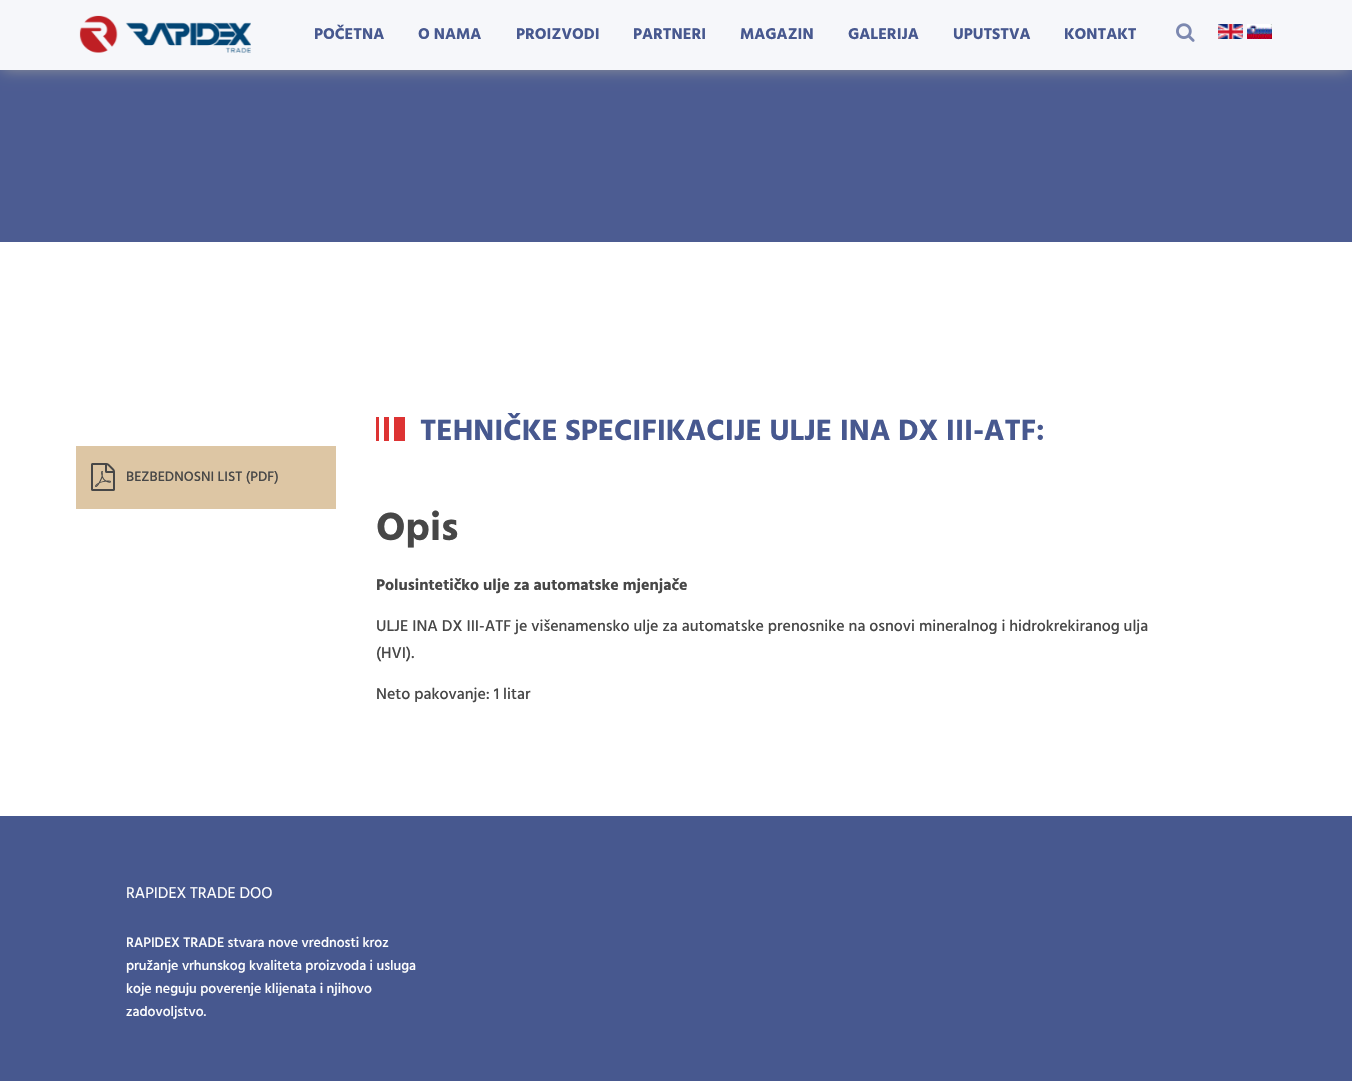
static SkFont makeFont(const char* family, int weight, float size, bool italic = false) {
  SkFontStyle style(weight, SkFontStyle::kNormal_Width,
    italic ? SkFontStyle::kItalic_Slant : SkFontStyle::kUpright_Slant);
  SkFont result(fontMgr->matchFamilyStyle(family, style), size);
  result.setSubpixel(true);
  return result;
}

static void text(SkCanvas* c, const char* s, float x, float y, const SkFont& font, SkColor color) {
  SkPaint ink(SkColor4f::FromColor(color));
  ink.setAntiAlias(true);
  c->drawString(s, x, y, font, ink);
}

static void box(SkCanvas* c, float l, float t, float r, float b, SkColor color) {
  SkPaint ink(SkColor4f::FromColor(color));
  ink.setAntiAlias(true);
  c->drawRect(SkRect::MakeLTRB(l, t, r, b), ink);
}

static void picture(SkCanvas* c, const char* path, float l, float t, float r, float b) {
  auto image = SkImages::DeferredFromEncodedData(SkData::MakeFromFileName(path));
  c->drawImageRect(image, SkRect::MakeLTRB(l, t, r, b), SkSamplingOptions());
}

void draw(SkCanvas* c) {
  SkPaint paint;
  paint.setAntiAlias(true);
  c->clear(0xffffffff);
  box(c, 0, 70, 1352, 242, 0xff4c5c92);
  paint.setColor(0xff999999);
  paint.setMaskFilter(SkMaskFilter::MakeBlur(kNormal_SkBlurStyle, 7.5f));
  c->drawRect(SkRect::MakeLTRB(2, 3, 1350, 69), paint);
  paint.setMaskFilter(nullptr);
  box(c, 0, 0, 1352, 70, 0xfff6f7fa);
  picture(c, "img_01.png", 79, 15, 251, 53);
  SkFont face1 = makeFont("Hind", 700, 16);
  text(c, "POČETNA", 314, 39, face1, 0xff47588f);
  text(c, "O NAMA", 418, 39, face1, 0xff47588f);
  text(c, "PROIZVODI", 516, 39, face1, 0xff47588f);
  text(c, "PARTNERI", 633, 39, face1, 0xff47588f);
  text(c, "MAGAZIN", 740, 39, face1, 0xff47588f);
  text(c, "GALERIJA", 848, 39, face1, 0xff47588f);
  text(c, "UPUTSTVA", 953, 39, face1, 0xff47588f);
  text(c, "KONTAKT", 1064, 39, face1, 0xff47588f);
  picture(c, "img_02.png", 1176, 23, 1195, 42);
  picture(c, "img_03.png", 1218, 24, 1243, 39);
  picture(c, "img_04.png", 1247, 24, 1272, 39);
  box(c, 76, 446, 336, 509, 0xffddc6a4);
  picture(c, "img_05.png", 91, 463, 115, 491);
  SkFont face2 = makeFont("Hind", 500, 14);
  text(c, "BEZBEDNOSNI LIST (PDF)", 126, 481, face2, 0xff474747);
  box(c, 376, 417, 379, 441, 0xffdd3333);
  box(c, 384, 417, 389, 441, 0xffdd3333);
  box(c, 394, 417, 405, 441, 0xffdd3333);
  SkFont face3 = makeFont("Hind", 700, 30);
  text(c, "TEHNIČKE SPECIFIKACIJE ULJE INA DX III-ATF:", 420, 440, face3, 0xff47588f);
  SkFont face4 = makeFont("Hind", 700, 40);
  text(c, "Opis", 376, 540, face4, 0xff474747);
  text(c, "Polusintetičko ulje za automatske mjenjače", 376, 590, face1, 0xff474747);
  SkFont face5 = makeFont("Hind", 500, 16);
  text(c, "ULJE INA DX III-ATF je višenamensko ulje za automatske prenosnike na osnovi mineralnog i hidrokrekiranog ulja", 376, 631, face5, 0xff474747);
  text(c, "(HVI).", 376, 658, face5, 0xff474747);
  text(c, "Neto pakovanje: 1 litar", 376, 699, face5, 0xff474747);
  box(c, 0, 816, 1352, 1081, 0xff47588f);
  SkFont face6 = makeFont("Hind", 400, 16);
  text(c, "RAPIDEX TRADE DOO", 126, 898, face6, 0xffffffff);
  text(c, "RAPIDEX TRADE stvara nove vrednosti kroz", 126, 947, face2, 0xffffffff);
  text(c, "pružanje vrhunskog kvaliteta proizvoda i usluga", 126, 970, face2, 0xffffffff);
  text(c, "koje neguju poverenje klijenata i njihovo", 126, 993, face2, 0xffffffff);
  text(c, "zadovoljstvo.", 126, 1016, face2, 0xffffffff);
}
